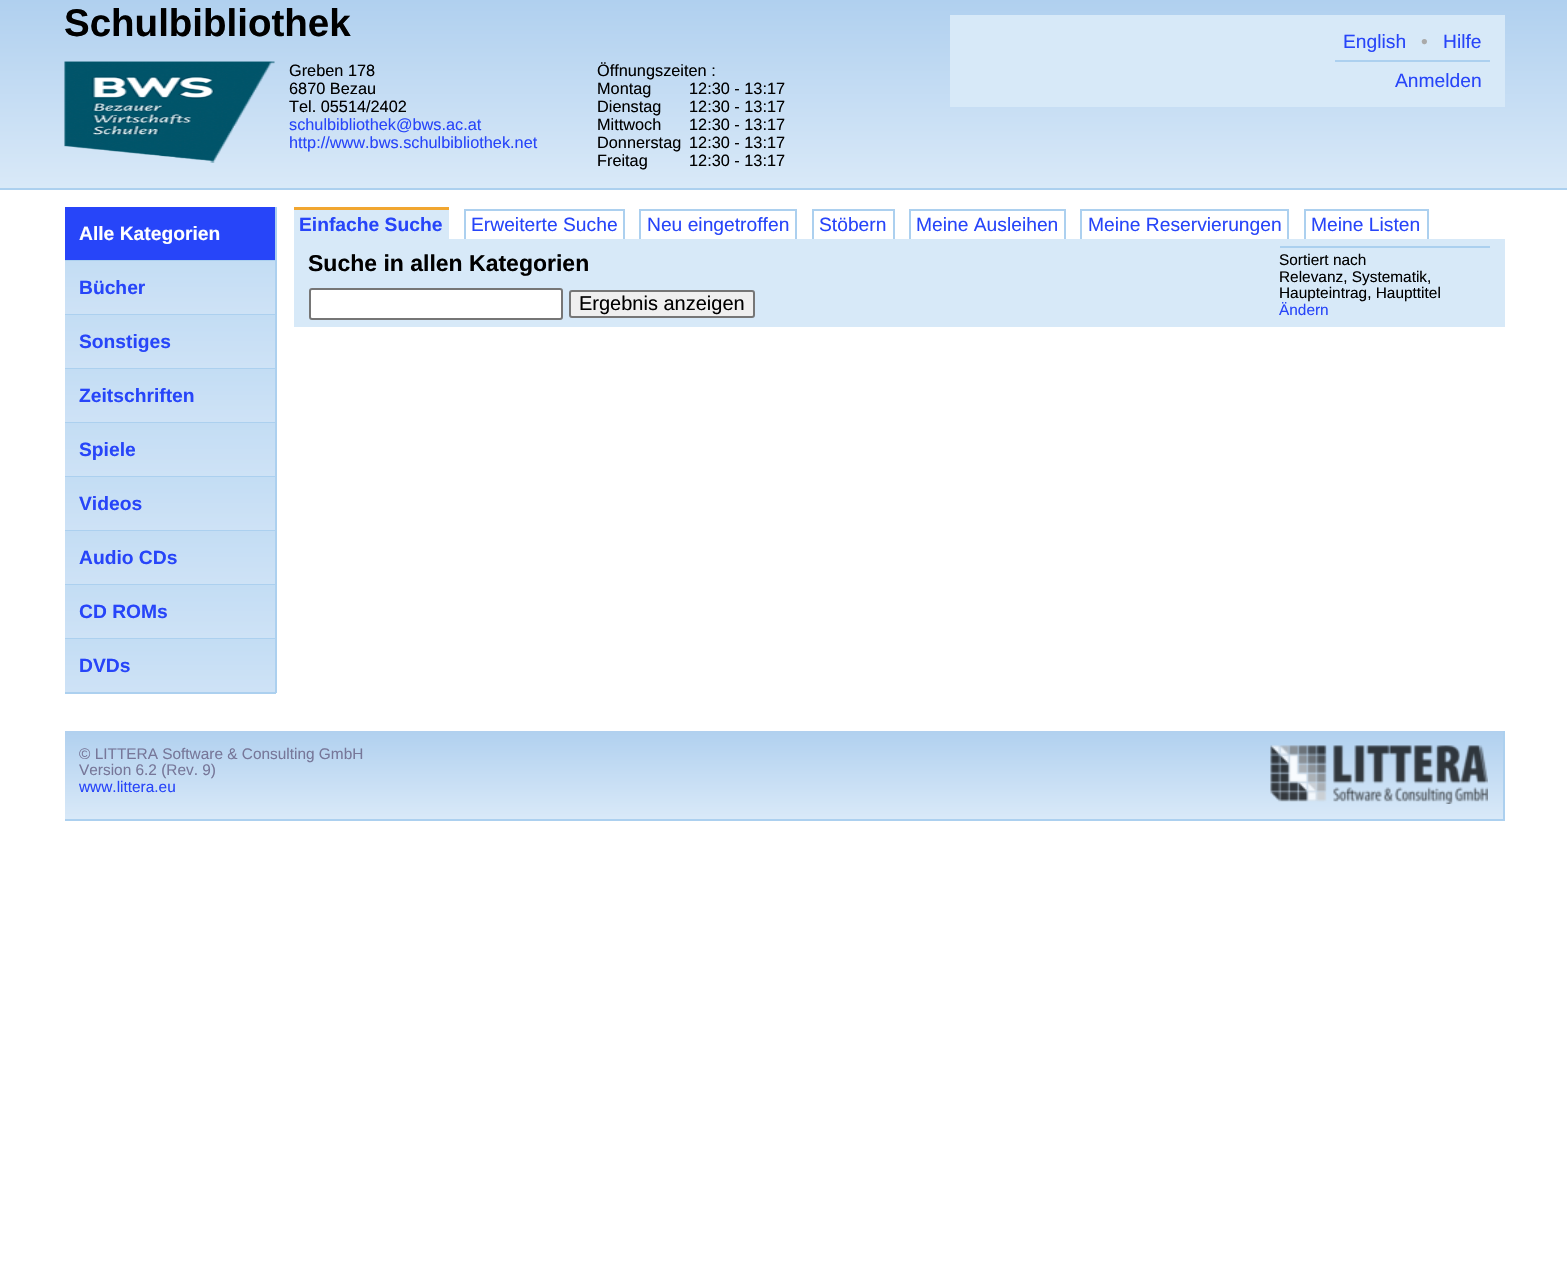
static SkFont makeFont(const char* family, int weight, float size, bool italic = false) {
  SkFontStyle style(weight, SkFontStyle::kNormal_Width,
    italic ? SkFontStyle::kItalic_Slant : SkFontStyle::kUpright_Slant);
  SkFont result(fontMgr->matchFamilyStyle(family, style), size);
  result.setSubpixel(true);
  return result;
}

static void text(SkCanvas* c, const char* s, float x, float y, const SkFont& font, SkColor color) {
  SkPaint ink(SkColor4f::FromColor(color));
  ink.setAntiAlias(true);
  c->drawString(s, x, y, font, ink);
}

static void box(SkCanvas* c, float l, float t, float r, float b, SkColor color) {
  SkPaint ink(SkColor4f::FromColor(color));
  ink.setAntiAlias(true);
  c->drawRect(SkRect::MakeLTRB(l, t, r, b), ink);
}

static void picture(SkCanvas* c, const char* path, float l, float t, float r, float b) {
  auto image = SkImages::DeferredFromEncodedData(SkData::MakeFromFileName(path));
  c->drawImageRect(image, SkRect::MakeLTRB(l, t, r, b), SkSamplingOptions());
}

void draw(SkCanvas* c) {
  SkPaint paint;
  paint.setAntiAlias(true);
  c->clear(0xffffffff);
  {
    const SkColor colors[] = {0xffb0d0ef, 0xffd9e9f8};
    const float stops[] = {0, 1};
    const SkPoint ends[] = {{784, 0}, {784, 188}};
    paint.setShader(SkGradientShader::MakeLinear(ends, colors, stops, 2, SkTileMode::kClamp));
    paint.setAlpha(255);
  }
  c->drawRect(SkRect::MakeLTRB(0, 0, 1567, 188), paint);
  box(c, 0, 188, 1567, 190, 0xffacd0ef);
  SkFont face1 = makeFont("Liberation Sans", 700, 38.5f);
  text(c, "Schulbibliothek", 64, 36, face1, 0xff000000);
  picture(c, "img_01.png", 64, 61, 275, 163);
  SkFont face2 = makeFont("Liberation Sans", 400, 16.3f);
  text(c, "Greben 178", 289, 76, face2, 0xff000000);
  text(c, "6870 Bezau", 289, 94, face2, 0xff000000);
  text(c, "Tel. 05514/2402", 289, 112, face2, 0xff000000);
  text(c, "schulbibliothek@bws.ac.at", 289, 130, face2, 0xff2745f9);
  text(c, "http://www.bws.schulbibliothek.net", 289, 148, face2, 0xff2745f9);
  text(c, "Öffnungszeiten :", 597, 76, face2, 0xff000000);
  text(c, "Montag", 597, 94, face2, 0xff000000);
  text(c, "12:30 - 13:17", 689, 94, face2, 0xff000000);
  text(c, "Dienstag", 597, 112, face2, 0xff000000);
  text(c, "12:30 - 13:17", 689, 112, face2, 0xff000000);
  text(c, "Mittwoch", 597, 130, face2, 0xff000000);
  text(c, "12:30 - 13:17", 689, 130, face2, 0xff000000);
  text(c, "Donnerstag", 597, 148, face2, 0xff000000);
  text(c, "12:30 - 13:17", 689, 148, face2, 0xff000000);
  text(c, "Freitag", 597, 166, face2, 0xff000000);
  text(c, "12:30 - 13:17", 689, 166, face2, 0xff000000);
  box(c, 950, 15, 1505, 107, 0xffd7e9f8);
  SkFont face3 = makeFont("Liberation Sans", 400, 19.25f);
  text(c, "English", 1343, 48, face3, 0xff2745f9);
  text(c, "•", 1421, 48, face3, 0xffaaaaaa);
  box(c, 1335, 60, 1490, 62, 0xffacd0ef);
  text(c, "Hilfe", 1443, 48, face3, 0xff2745f9);
  text(c, "Anmelden", 1395, 87, face3, 0xff2745f9);
  box(c, 65, 207, 275, 260, 0xff2745f9);
  box(c, 275, 207, 277, 693, 0xffacd0ef);
  box(c, 65, 260, 276, 261, 0xffacd0ef);
  SkFont face4 = makeFont("Liberation Sans", 700, 19.25f);
  text(c, "Alle Kategorien", 79, 240, face4, 0xffffffff);
  {
    const SkColor colors[] = {0xffc3ddf4, 0xffcee2f6};
    const float stops[] = {0, 1};
    const SkPoint ends[] = {{170, 261}, {170, 314}};
    paint.setShader(SkGradientShader::MakeLinear(ends, colors, stops, 2, SkTileMode::kClamp));
    paint.setAlpha(255);
  }
  c->drawRect(SkRect::MakeLTRB(65, 261, 275, 314), paint);
  box(c, 65, 314, 276, 315, 0xffacd0ef);
  text(c, "Bücher", 79, 294, face4, 0xff2745f9);
  {
    const SkColor colors[] = {0xffc3ddf4, 0xffcee2f6};
    const float stops[] = {0, 1};
    const SkPoint ends[] = {{170, 315}, {170, 368}};
    paint.setShader(SkGradientShader::MakeLinear(ends, colors, stops, 2, SkTileMode::kClamp));
    paint.setAlpha(255);
  }
  c->drawRect(SkRect::MakeLTRB(65, 315, 275, 368), paint);
  box(c, 65, 368, 276, 369, 0xffacd0ef);
  text(c, "Sonstiges", 79, 348, face4, 0xff2745f9);
  {
    const SkColor colors[] = {0xffc3ddf4, 0xffcee2f6};
    const float stops[] = {0, 1};
    const SkPoint ends[] = {{170, 369}, {170, 422}};
    paint.setShader(SkGradientShader::MakeLinear(ends, colors, stops, 2, SkTileMode::kClamp));
    paint.setAlpha(255);
  }
  c->drawRect(SkRect::MakeLTRB(65, 369, 275, 422), paint);
  box(c, 65, 422, 276, 423, 0xffacd0ef);
  text(c, "Zeitschriften", 79, 402, face4, 0xff2745f9);
  {
    const SkColor colors[] = {0xffc3ddf4, 0xffcee2f6};
    const float stops[] = {0, 1};
    const SkPoint ends[] = {{170, 423}, {170, 476}};
    paint.setShader(SkGradientShader::MakeLinear(ends, colors, stops, 2, SkTileMode::kClamp));
    paint.setAlpha(255);
  }
  c->drawRect(SkRect::MakeLTRB(65, 423, 275, 476), paint);
  box(c, 65, 476, 276, 477, 0xffacd0ef);
  text(c, "Spiele", 79, 456, face4, 0xff2745f9);
  {
    const SkColor colors[] = {0xffc3ddf4, 0xffcee2f6};
    const float stops[] = {0, 1};
    const SkPoint ends[] = {{170, 477}, {170, 530}};
    paint.setShader(SkGradientShader::MakeLinear(ends, colors, stops, 2, SkTileMode::kClamp));
    paint.setAlpha(255);
  }
  c->drawRect(SkRect::MakeLTRB(65, 477, 275, 530), paint);
  box(c, 65, 530, 276, 531, 0xffacd0ef);
  text(c, "Videos", 79, 510, face4, 0xff2745f9);
  {
    const SkColor colors[] = {0xffc3ddf4, 0xffcee2f6};
    const float stops[] = {0, 1};
    const SkPoint ends[] = {{170, 531}, {170, 584}};
    paint.setShader(SkGradientShader::MakeLinear(ends, colors, stops, 2, SkTileMode::kClamp));
    paint.setAlpha(255);
  }
  c->drawRect(SkRect::MakeLTRB(65, 531, 275, 584), paint);
  box(c, 65, 584, 276, 585, 0xffacd0ef);
  text(c, "Audio CDs", 79, 564, face4, 0xff2745f9);
  {
    const SkColor colors[] = {0xffc3ddf4, 0xffcee2f6};
    const float stops[] = {0, 1};
    const SkPoint ends[] = {{170, 585}, {170, 638}};
    paint.setShader(SkGradientShader::MakeLinear(ends, colors, stops, 2, SkTileMode::kClamp));
    paint.setAlpha(255);
  }
  c->drawRect(SkRect::MakeLTRB(65, 585, 275, 638), paint);
  box(c, 65, 638, 276, 639, 0xffacd0ef);
  text(c, "CD ROMs", 79, 618, face4, 0xff2745f9);
  {
    const SkColor colors[] = {0xffc3ddf4, 0xffcee2f6};
    const float stops[] = {0, 1};
    const SkPoint ends[] = {{170, 639}, {170, 692}};
    paint.setShader(SkGradientShader::MakeLinear(ends, colors, stops, 2, SkTileMode::kClamp));
    paint.setAlpha(255);
  }
  c->drawRect(SkRect::MakeLTRB(65, 639, 275, 692), paint);
  box(c, 65, 692, 276, 694, 0xffacd0ef);
  text(c, "DVDs", 79, 672, face4, 0xff2745f9);
  box(c, 294, 210, 449, 239, 0xffd7e9f8);
  box(c, 294, 207, 449, 210, 0xfff1a630);
  text(c, "Einfache Suche", 299, 231, face4, 0xff2745f9);
  box(c, 464, 209, 624, 211, 0xffacd0ef);
  box(c, 623, 209, 625, 239, 0xffacd0ef);
  box(c, 464, 209, 466, 239, 0xffacd0ef);
  text(c, "Erweiterte Suche", 471, 231, face3, 0xff2745f9);
  box(c, 639, 209, 797, 211, 0xffacd0ef);
  box(c, 795, 209, 797, 239, 0xffacd0ef);
  box(c, 639, 209, 641, 239, 0xffacd0ef);
  text(c, "Neu eingetroffen", 647, 231, face3, 0xff2745f9);
  box(c, 812, 209, 894, 211, 0xffacd0ef);
  box(c, 893, 209, 895, 239, 0xffacd0ef);
  box(c, 812, 209, 814, 239, 0xffacd0ef);
  text(c, "Stöbern", 819, 231, face3, 0xff2745f9);
  box(c, 909, 209, 1065, 211, 0xffacd0ef);
  box(c, 1064, 209, 1066, 239, 0xffacd0ef);
  box(c, 909, 209, 911, 239, 0xffacd0ef);
  text(c, "Meine Ausleihen", 916, 231, face3, 0xff2745f9);
  box(c, 1080, 209, 1289, 211, 0xffacd0ef);
  box(c, 1287, 209, 1289, 239, 0xffacd0ef);
  box(c, 1080, 209, 1082, 239, 0xffacd0ef);
  text(c, "Meine Reservierungen", 1088, 231, face3, 0xff2745f9);
  box(c, 1304, 209, 1428, 211, 0xffacd0ef);
  box(c, 1427, 209, 1429, 239, 0xffacd0ef);
  box(c, 1304, 209, 1306, 239, 0xffacd0ef);
  text(c, "Meine Listen", 1311, 231, face3, 0xff2745f9);
  box(c, 294, 239, 1505, 327, 0xffd7e9f8);
  SkFont face5 = makeFont("Liberation Sans", 700, 23);
  text(c, "Suche in allen Kategorien", 308, 271, face5, 0xff000000);
  paint.setShader(nullptr);
  paint.setColor(0xffffffff);
  c->drawRoundRect(SkRect::MakeLTRB(310, 289, 562, 319), 2, 2, paint);
  paint.setStyle(SkPaint::kStroke_Style);
  paint.setStrokeWidth(2);
  paint.setColor(0xff767676);
  c->drawRoundRect(SkRect::MakeLTRB(310, 289, 562, 319), 2, 2, paint);
  paint.setStyle(SkPaint::kFill_Style);
  paint.setColor(0xffefefef);
  c->drawRoundRect(SkRect::MakeLTRB(570, 291, 754, 317), 2, 2, paint);
  paint.setStyle(SkPaint::kStroke_Style);
  paint.setColor(0xff767676);
  c->drawRoundRect(SkRect::MakeLTRB(570, 291, 754, 317), 2, 2, paint);
  SkFont face6 = makeFont("Liberation Sans", 400, 20);
  text(c, "Ergebnis anzeigen", 579, 310, face6, 0xff000000);
  box(c, 1280, 246, 1490, 248, 0xffabd0ef);
  SkFont face7 = makeFont("Liberation Sans", 400, 15.4f);
  text(c, "Sortiert nach", 1279, 265, face7, 0xff000000);
  text(c, "Relevanz, Systematik,", 1279, 282, face7, 0xff000000);
  text(c, "Haupteintrag, Haupttitel", 1279, 298, face7, 0xff000000);
  text(c, "Ändern", 1279, 315, face7, 0xff2745f9);
  paint.setStyle(SkPaint::kFill_Style);
  {
    const SkColor colors[] = {0xffb0d0ef, 0xffd9e9f8};
    const float stops[] = {0, 1};
    const SkPoint ends[] = {{784, 730}, {784, 819}};
    paint.setShader(SkGradientShader::MakeLinear(ends, colors, stops, 2, SkTileMode::kClamp));
    paint.setAlpha(255);
  }
  c->drawRect(SkRect::MakeLTRB(65, 731, 1503, 819), paint);
  box(c, 1503, 731, 1505, 821, 0xffacd0ef);
  box(c, 65, 819, 1505, 821, 0xffacd0ef);
  text(c, "© LITTERA Software & Consulting GmbH", 79, 759, face7, 0xff777799);
  text(c, "Version 6.2 (Rev. 9)", 79, 775, face7, 0xff777799);
  text(c, "www.littera.eu", 79, 792, face7, 0xff2745f9);
  picture(c, "img_02.png", 1270, 745, 1488, 804);
}
